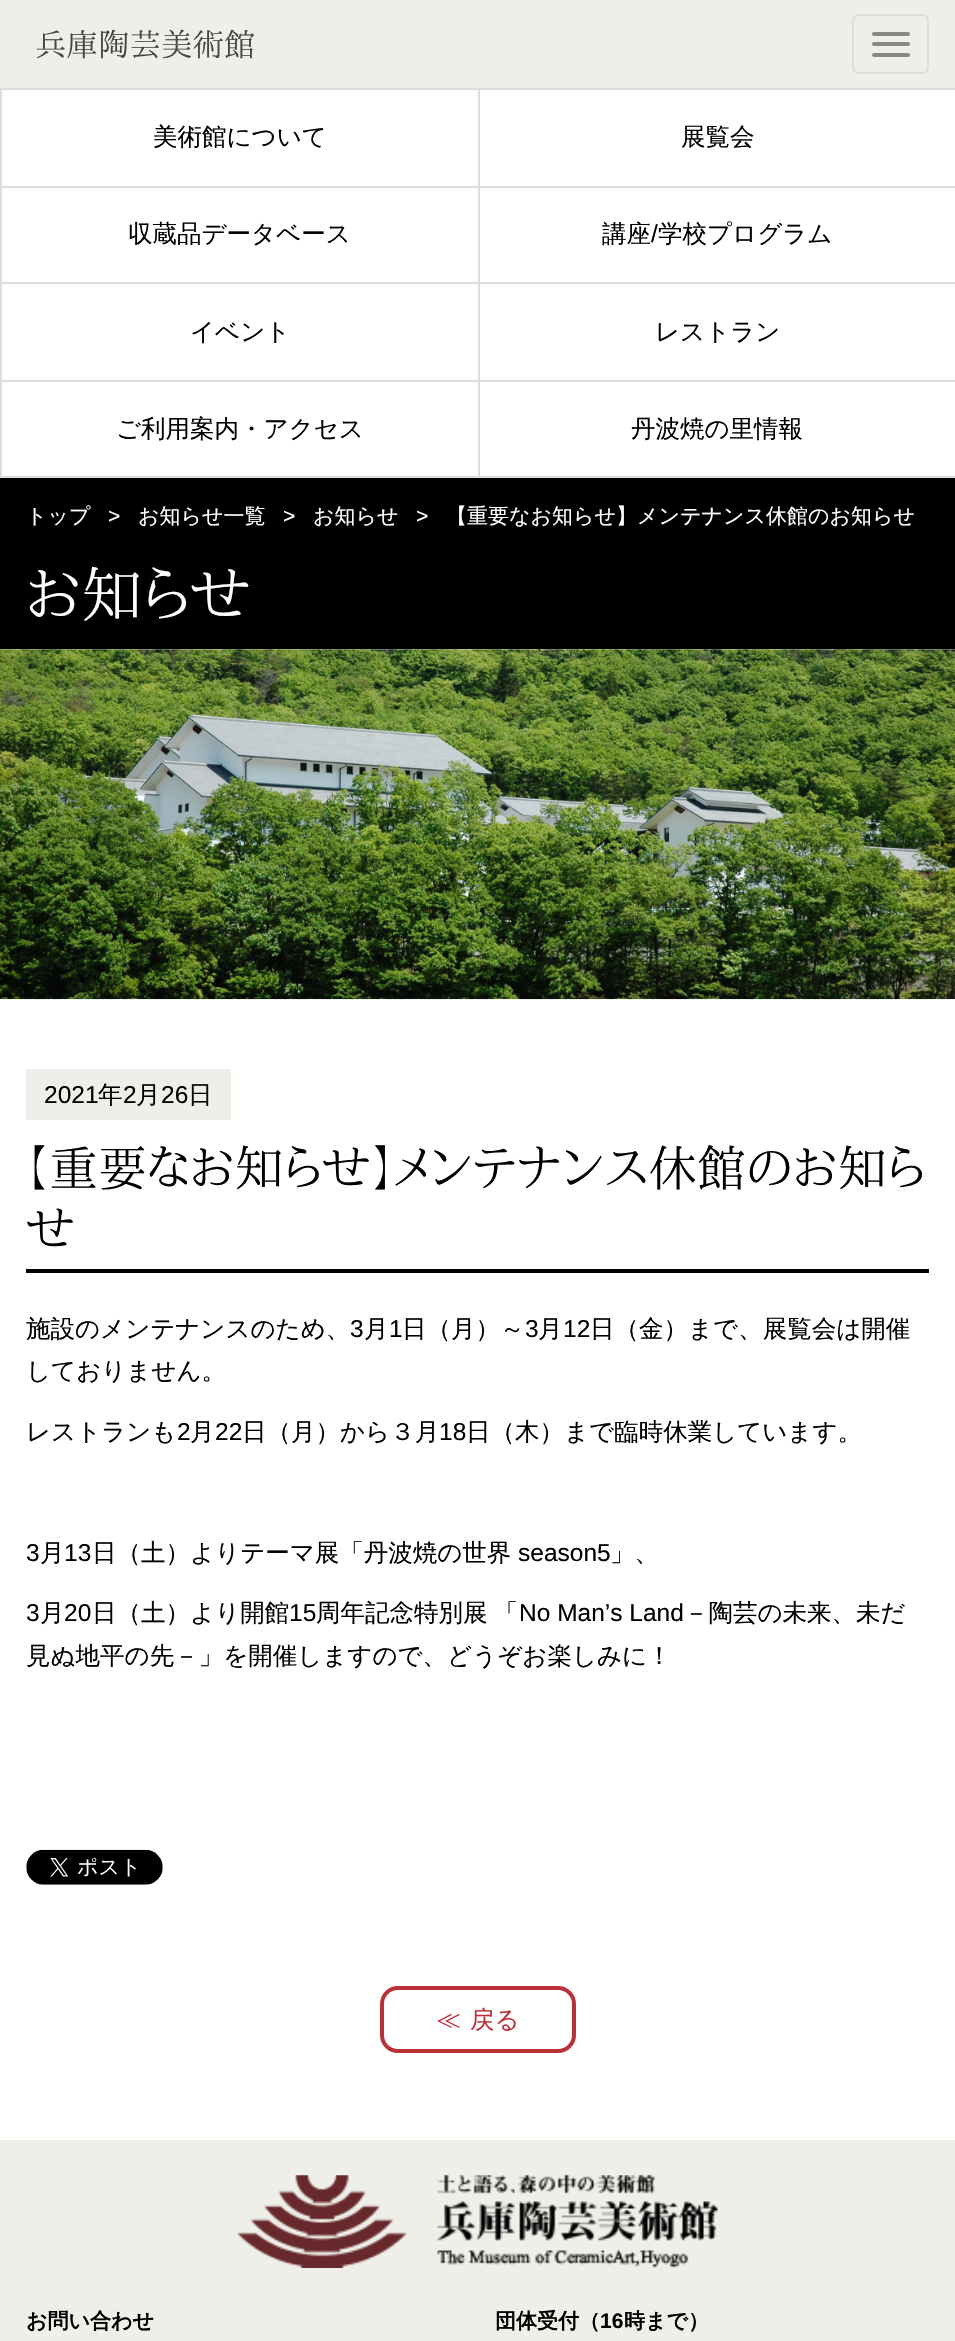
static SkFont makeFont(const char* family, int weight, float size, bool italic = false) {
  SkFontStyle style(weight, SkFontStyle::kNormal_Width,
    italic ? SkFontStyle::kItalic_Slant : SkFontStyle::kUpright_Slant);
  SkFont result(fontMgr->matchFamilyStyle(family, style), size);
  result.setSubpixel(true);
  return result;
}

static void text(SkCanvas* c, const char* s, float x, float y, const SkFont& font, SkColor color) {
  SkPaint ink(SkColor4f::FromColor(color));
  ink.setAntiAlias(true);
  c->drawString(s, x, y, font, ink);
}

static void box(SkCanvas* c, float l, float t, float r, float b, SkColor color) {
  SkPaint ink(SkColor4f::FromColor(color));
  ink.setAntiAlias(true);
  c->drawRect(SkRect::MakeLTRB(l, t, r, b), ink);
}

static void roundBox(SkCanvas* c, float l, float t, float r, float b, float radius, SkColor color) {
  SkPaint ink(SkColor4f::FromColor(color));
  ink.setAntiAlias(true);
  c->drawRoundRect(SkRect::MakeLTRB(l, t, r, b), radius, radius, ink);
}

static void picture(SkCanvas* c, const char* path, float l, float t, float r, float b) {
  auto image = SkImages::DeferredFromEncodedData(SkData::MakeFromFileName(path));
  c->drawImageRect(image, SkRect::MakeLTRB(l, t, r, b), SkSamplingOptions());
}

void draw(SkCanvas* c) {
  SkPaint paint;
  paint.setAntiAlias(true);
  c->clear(0xffffffff);
  box(c, 0, 0, 955, 88, 0xffefefe9);
  SkFont face1 = makeFont("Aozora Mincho", 400, 31.5f);
  text(c, "兵庫陶芸美術館", 35, 56, face1, 0xff444444);
  paint.setStyle(SkPaint::kStroke_Style);
  paint.setStrokeWidth(2);
  paint.setColor(0xffdddddd);
  c->drawRoundRect(SkRect::MakeLTRB(853, 15, 928, 73), 6, 6, paint);
  roundBox(c, 872, 32, 910, 36, 2, 0xff888888);
  roundBox(c, 872, 42, 910, 46, 2, 0xff888888);
  roundBox(c, 872, 53, 910, 57, 2, 0xff888888);
  box(c, 0, 88, 955, 90, 0xffdddddd);
  box(c, 0, 186, 955, 188, 0xffdddddd);
  box(c, 0, 89, 2, 187, 0xffdddddd);
  SkFont face2 = makeFont("WenQuanYi Zen Hei", 500, 24.5f);
  text(c, "美術館について", 153, 145, face2, 0xff000000);
  box(c, 478, 89, 480, 187, 0xffdddddd);
  text(c, "展覧会", 681, 145, face2, 0xff000000);
  box(c, 0, 282, 955, 284, 0xffdddddd);
  box(c, 0, 187, 2, 284, 0xffdddddd);
  text(c, "収蔵品データベース", 128, 242, face2, 0xff000000);
  box(c, 478, 187, 480, 284, 0xffdddddd);
  text(c, "講座", 602, 242, face2, 0xff000000);
  SkFont face3 = makeFont("Liberation Sans", 400, 24.5f);
  text(c, "/", 651, 242, face3, 0xff000000);
  text(c, "学校プログラム", 658, 242, face2, 0xff000000);
  box(c, 0, 380, 955, 382, 0xffdddddd);
  box(c, 0, 284, 2, 382, 0xffdddddd);
  text(c, "イベント", 190, 340, face2, 0xff000000);
  box(c, 478, 284, 480, 382, 0xffdddddd);
  text(c, "レストラン", 655, 340, face2, 0xff000000);
  box(c, 0, 476, 955, 478, 0xffdddddd);
  box(c, 0, 382, 2, 478, 0xffdddddd);
  text(c, "ご利用案内・アクセス", 116, 437, face2, 0xff000000);
  box(c, 478, 382, 480, 478, 0xffdddddd);
  text(c, "丹波焼の里情報", 631, 437, face2, 0xff000000);
  box(c, 0, 478, 955, 649, 0xff000000);
  SkFont face4 = makeFont("WenQuanYi Zen Hei", 500, 21);
  text(c, "トップ", 26, 523, face4, 0xffffffff);
  SkFont face5 = makeFont("Liberation Sans", 400, 21);
  text(c, ">", 108, 523, face5, 0xffffffff);
  text(c, "お知らせ一覧", 138, 523, face4, 0xffffffff);
  text(c, ">", 283, 523, face5, 0xffffffff);
  text(c, "お知らせ", 313, 523, face4, 0xffffffff);
  text(c, ">", 416, 523, face5, 0xffffffff);
  text(c, "【重要なお知らせ】メンテナンス休館のお知らせ", 446, 523, face4, 0xffffffff);
  SkFont face6 = makeFont("Aozora Mincho", 400, 61);
  text(c, "お知らせ", 26, 617, face6, 0xffffffff);
  picture(c, "img_01.png", 0, 649, 955, 1000);
  box(c, 26, 1069, 231, 1120, 0xffefefe9);
  text(c, "2021", 44, 1103, face3, 0xff000000);
  text(c, "年", 98, 1103, face2, 0xff000000);
  text(c, "2", 123, 1103, face3, 0xff000000);
  text(c, "月", 136, 1103, face2, 0xff000000);
  text(c, "26", 161, 1103, face3, 0xff000000);
  text(c, "日", 188, 1103, face2, 0xff000000);
  box(c, 26, 1269, 929, 1273, 0xff000000);
  SkFont face7 = makeFont("Aozora Mincho", 400, 49);
  text(c, "【重要なお知らせ】メンテナンス休館のお知ら", 26, 1186, face7, 0xff000000);
  text(c, "せ", 26, 1247, face7, 0xff000000);
  text(c, "施設のメンテナンスのため、", 26, 1337, face2, 0xff000000);
  text(c, "3", 350, 1337, face3, 0xff000000);
  text(c, "月", 364, 1337, face2, 0xff000000);
  text(c, "1", 389, 1337, face3, 0xff000000);
  text(c, "日（月）～", 402, 1337, face2, 0xff000000);
  text(c, "3", 525, 1337, face3, 0xff000000);
  text(c, "月", 538, 1337, face2, 0xff000000);
  text(c, "12", 563, 1337, face3, 0xff000000);
  text(c, "日（金）まで、展覧会は開催", 590, 1337, face2, 0xff000000);
  text(c, "しておりません。", 26, 1379, face2, 0xff000000);
  text(c, "レストランも", 26, 1440, face2, 0xff000000);
  text(c, "2", 177, 1440, face3, 0xff000000);
  text(c, "月", 190, 1440, face2, 0xff000000);
  text(c, "22", 215, 1440, face3, 0xff000000);
  text(c, "日（月）から３月", 242, 1440, face2, 0xff000000);
  text(c, "18", 439, 1440, face3, 0xff000000);
  text(c, "日（木）まで臨時休業しています。", 466, 1440, face2, 0xff000000);
  text(c, "3", 26, 1561, face3, 0xff000000);
  text(c, "月", 40, 1561, face2, 0xff000000);
  text(c, "13", 64, 1561, face3, 0xff000000);
  text(c, "日（土）よりテーマ展「丹波焼の世界", 92, 1561, face2, 0xff000000);
  text(c, "season5", 518, 1561, face3, 0xff000000);
  text(c, "」、", 610, 1561, face2, 0xff000000);
  text(c, "3", 26, 1621, face3, 0xff000000);
  text(c, "月", 40, 1621, face2, 0xff000000);
  text(c, "20", 64, 1621, face3, 0xff000000);
  text(c, "日（土）より開館", 92, 1621, face2, 0xff000000);
  text(c, "15", 289, 1621, face3, 0xff000000);
  text(c, "周年記念特別展", 316, 1621, face2, 0xff000000);
  text(c, "「", 494, 1621, face2, 0xff000000);
  text(c, "No Man’s Land", 519, 1621, face3, 0xff000000);
  text(c, "－陶芸の未来、未だ", 684, 1621, face2, 0xff000000);
  text(c, "見ぬ地平の先－」を開催しますので、どうぞお楽しみに！", 26, 1664, face2, 0xff000000);
  picture(c, "img_02.png", 26, 1849, 163, 1885);
  paint.setStrokeWidth(4);
  paint.setColor(0xffb93039);
  c->drawRoundRect(SkRect::MakeLTRB(382, 1988, 574, 2051), 16, 16, paint);
  text(c, "≪", 436, 2028, face2, 0xffb93039);
  text(c, "戻る", 470, 2028, face2, 0xffb93039);
  box(c, 0, 2140, 955, 2341, 0xffefefe9);
  picture(c, "img_03.png", 238, 2175, 718, 2268);
  SkFont face8 = makeFont("WenQuanYi Zen Hei", 700, 21);
  text(c, "お問い合わせ", 26, 2328, face8, 0xff000000);
  text(c, "団体受付（", 495, 2328, face8, 0xff000000);
  SkFont face9 = makeFont("Liberation Sans", 700, 21);
  text(c, "16", 600, 2328, face9, 0xff000000);
  text(c, "時まで）", 624, 2328, face8, 0xff000000);
}
